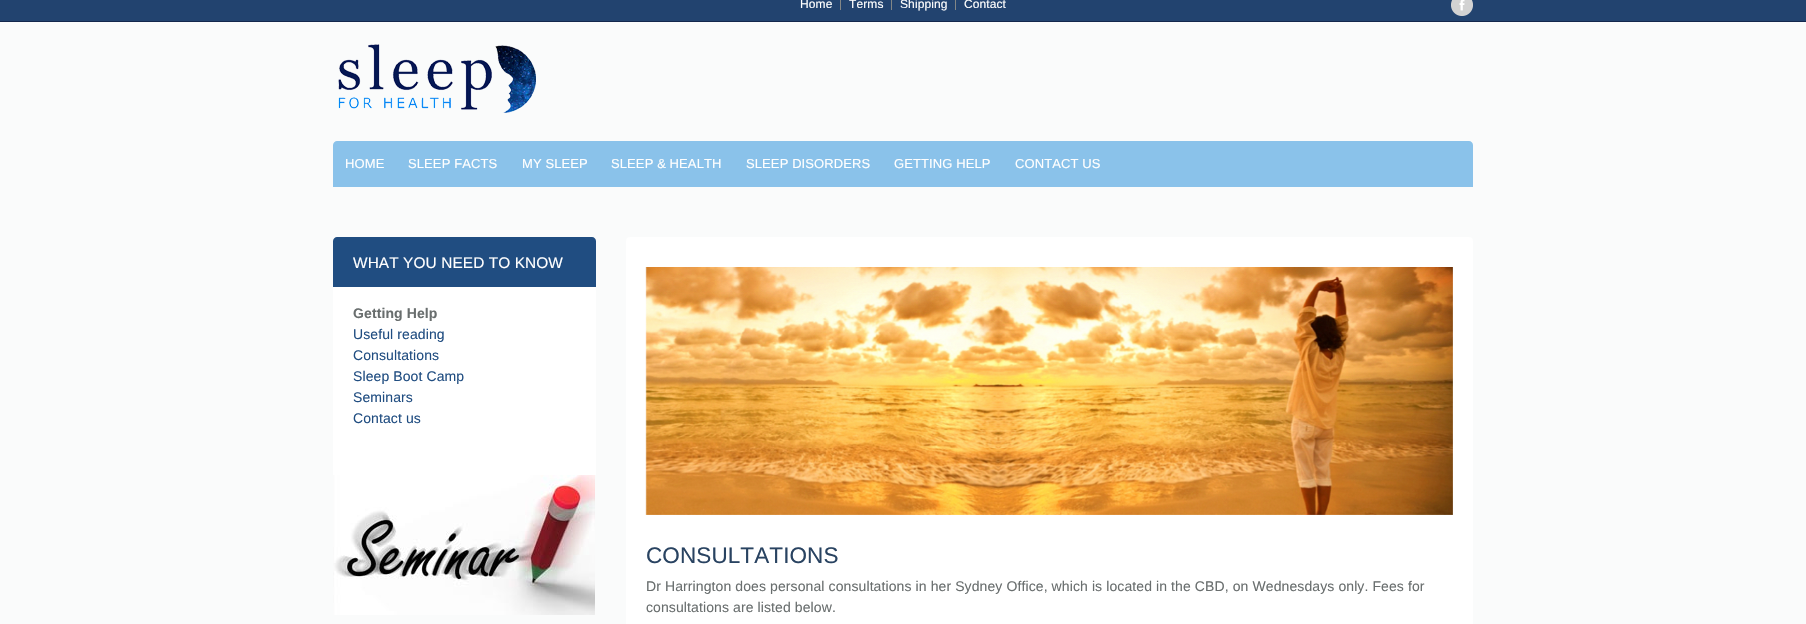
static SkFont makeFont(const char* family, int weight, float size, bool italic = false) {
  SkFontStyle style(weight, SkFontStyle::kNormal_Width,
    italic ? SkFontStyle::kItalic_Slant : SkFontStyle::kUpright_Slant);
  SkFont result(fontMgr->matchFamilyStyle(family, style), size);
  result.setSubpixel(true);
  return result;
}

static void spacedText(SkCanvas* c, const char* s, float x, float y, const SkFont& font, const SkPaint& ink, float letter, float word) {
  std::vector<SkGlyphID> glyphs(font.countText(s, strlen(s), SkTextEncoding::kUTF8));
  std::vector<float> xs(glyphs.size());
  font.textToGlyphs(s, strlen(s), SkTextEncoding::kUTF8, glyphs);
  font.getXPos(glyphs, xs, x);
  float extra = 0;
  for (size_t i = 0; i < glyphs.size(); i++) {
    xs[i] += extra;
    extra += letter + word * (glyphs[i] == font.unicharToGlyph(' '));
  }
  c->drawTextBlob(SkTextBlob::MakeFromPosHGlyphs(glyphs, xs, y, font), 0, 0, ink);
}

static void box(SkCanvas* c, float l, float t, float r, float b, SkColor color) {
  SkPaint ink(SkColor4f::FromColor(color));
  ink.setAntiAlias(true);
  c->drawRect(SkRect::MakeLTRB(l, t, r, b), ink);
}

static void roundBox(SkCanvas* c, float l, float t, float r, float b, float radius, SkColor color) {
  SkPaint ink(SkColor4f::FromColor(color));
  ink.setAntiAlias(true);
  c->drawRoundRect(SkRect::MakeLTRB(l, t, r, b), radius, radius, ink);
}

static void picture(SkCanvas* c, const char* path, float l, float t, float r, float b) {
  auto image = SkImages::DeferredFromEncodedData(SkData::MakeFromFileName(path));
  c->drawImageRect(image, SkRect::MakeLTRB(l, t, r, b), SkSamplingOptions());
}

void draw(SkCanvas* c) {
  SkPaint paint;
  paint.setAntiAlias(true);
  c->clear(0xfffafbfb);
  box(c, 0, 0, 1806, 21, 0xff22436f);
  box(c, 0, 21, 1806, 22, 0xff13274d);
  SkFont face1 = makeFont("Liberation Sans", 400, 12);
  paint.setColor(0xffffffff);
  spacedText(c, "Home", 800, 8, face1, paint, 0.1f, 0);
  box(c, 840, 0, 841, 10, 0xff828686);
  spacedText(c, "Terms", 849, 8, face1, paint, 0.1f, 0);
  box(c, 891, 0, 892, 10, 0xff828686);
  spacedText(c, "Shipping", 900, 8, face1, paint, 0.1f, 0);
  box(c, 955, 0, 956, 10, 0xff828686);
  spacedText(c, "Contact", 964, 8, face1, paint, 0.1f, 0);
  picture(c, "img_01.png", 1451, 0, 1473, 16);
  picture(c, "img_02.png", 338, 44, 536, 113);
  paint.setColor(0xff8ac2ea);
  c->drawPath(SkPathBuilder().moveTo(337, 141).lineTo(1469, 141).cubicTo(1471, 141, 1473, 143, 1473, 145).lineTo(1473, 187).lineTo(333, 187).lineTo(333, 145).cubicTo(333, 143, 335, 141, 337, 141).close().detach(), paint);
  SkFont face2 = makeFont("Liberation Sans", 400, 13);
  paint.setColor(0xffffffff);
  spacedText(c, "HOME", 345, 168, face2, paint, 0.1f, 0);
  spacedText(c, "SLEEP FACTS", 408, 168, face2, paint, 0.1f, 0);
  spacedText(c, "MY SLEEP", 522, 168, face2, paint, 0.1f, 0);
  spacedText(c, "SLEEP & HEALTH", 611, 168, face2, paint, 0.1f, 0);
  spacedText(c, "SLEEP DISORDERS", 746, 168, face2, paint, 0.1f, 0);
  spacedText(c, "GETTING HELP", 894, 168, face2, paint, 0.1f, 0);
  spacedText(c, "CONTACT US", 1015, 168, face2, paint, 0.1f, 0);
  paint.setColor(0xff204d81);
  c->drawPath(SkPathBuilder().moveTo(337, 237).lineTo(592, 237).cubicTo(594, 237, 596, 239, 596, 241).lineTo(596, 287).lineTo(333, 287).lineTo(333, 241).cubicTo(333, 239, 335, 237, 337, 237).close().detach(), paint);
  SkFont face3 = makeFont("Liberation Sans", 400, 15.4f);
  paint.setColor(0xffffffff);
  spacedText(c, "WHAT YOU NEED TO KNOW", 353, 268, face3, paint, 0.1f, 0);
  box(c, 333, 287, 596, 475, 0xffffffff);
  SkFont face4 = makeFont("Liberation Sans", 700, 14);
  paint.setColor(0xff696e6e);
  spacedText(c, "Getting Help", 353, 318, face4, paint, 0.1f, 0);
  SkFont face5 = makeFont("Liberation Sans", 400, 14);
  paint.setColor(0xff204d81);
  spacedText(c, "Useful reading", 353, 339, face5, paint, 0.1f, 0);
  spacedText(c, "Consultations", 353, 360, face5, paint, 0.1f, 0);
  spacedText(c, "Sleep Boot Camp", 353, 381, face5, paint, 0.1f, 0);
  spacedText(c, "Seminars", 353, 402, face5, paint, 0.1f, 0);
  spacedText(c, "Contact us", 353, 423, face5, paint, 0.1f, 0);
  picture(c, "img_03.png", 333, 475, 595, 615);
  roundBox(c, 626, 237, 1473, 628, 4, 0xffffffff);
  picture(c, "img_04.png", 645, 267, 1453, 515);
  SkFont face6 = makeFont("Liberation Sans", 400, 22.5f);
  paint.setColor(0xff294361);
  spacedText(c, "CONSULTATIONS", 646, 563, face6, paint, 0.1f, 0);
  paint.setColor(0xff696e6e);
  spacedText(c, "Dr Harrington does personal consultations in her Sydney Office, which is located in the CBD, on Wednesdays only. Fees for", 646, 591, face5, paint, 0.1f, 0);
  spacedText(c, "consultations are listed below.", 646, 612, face5, paint, 0.1f, 0);
}
